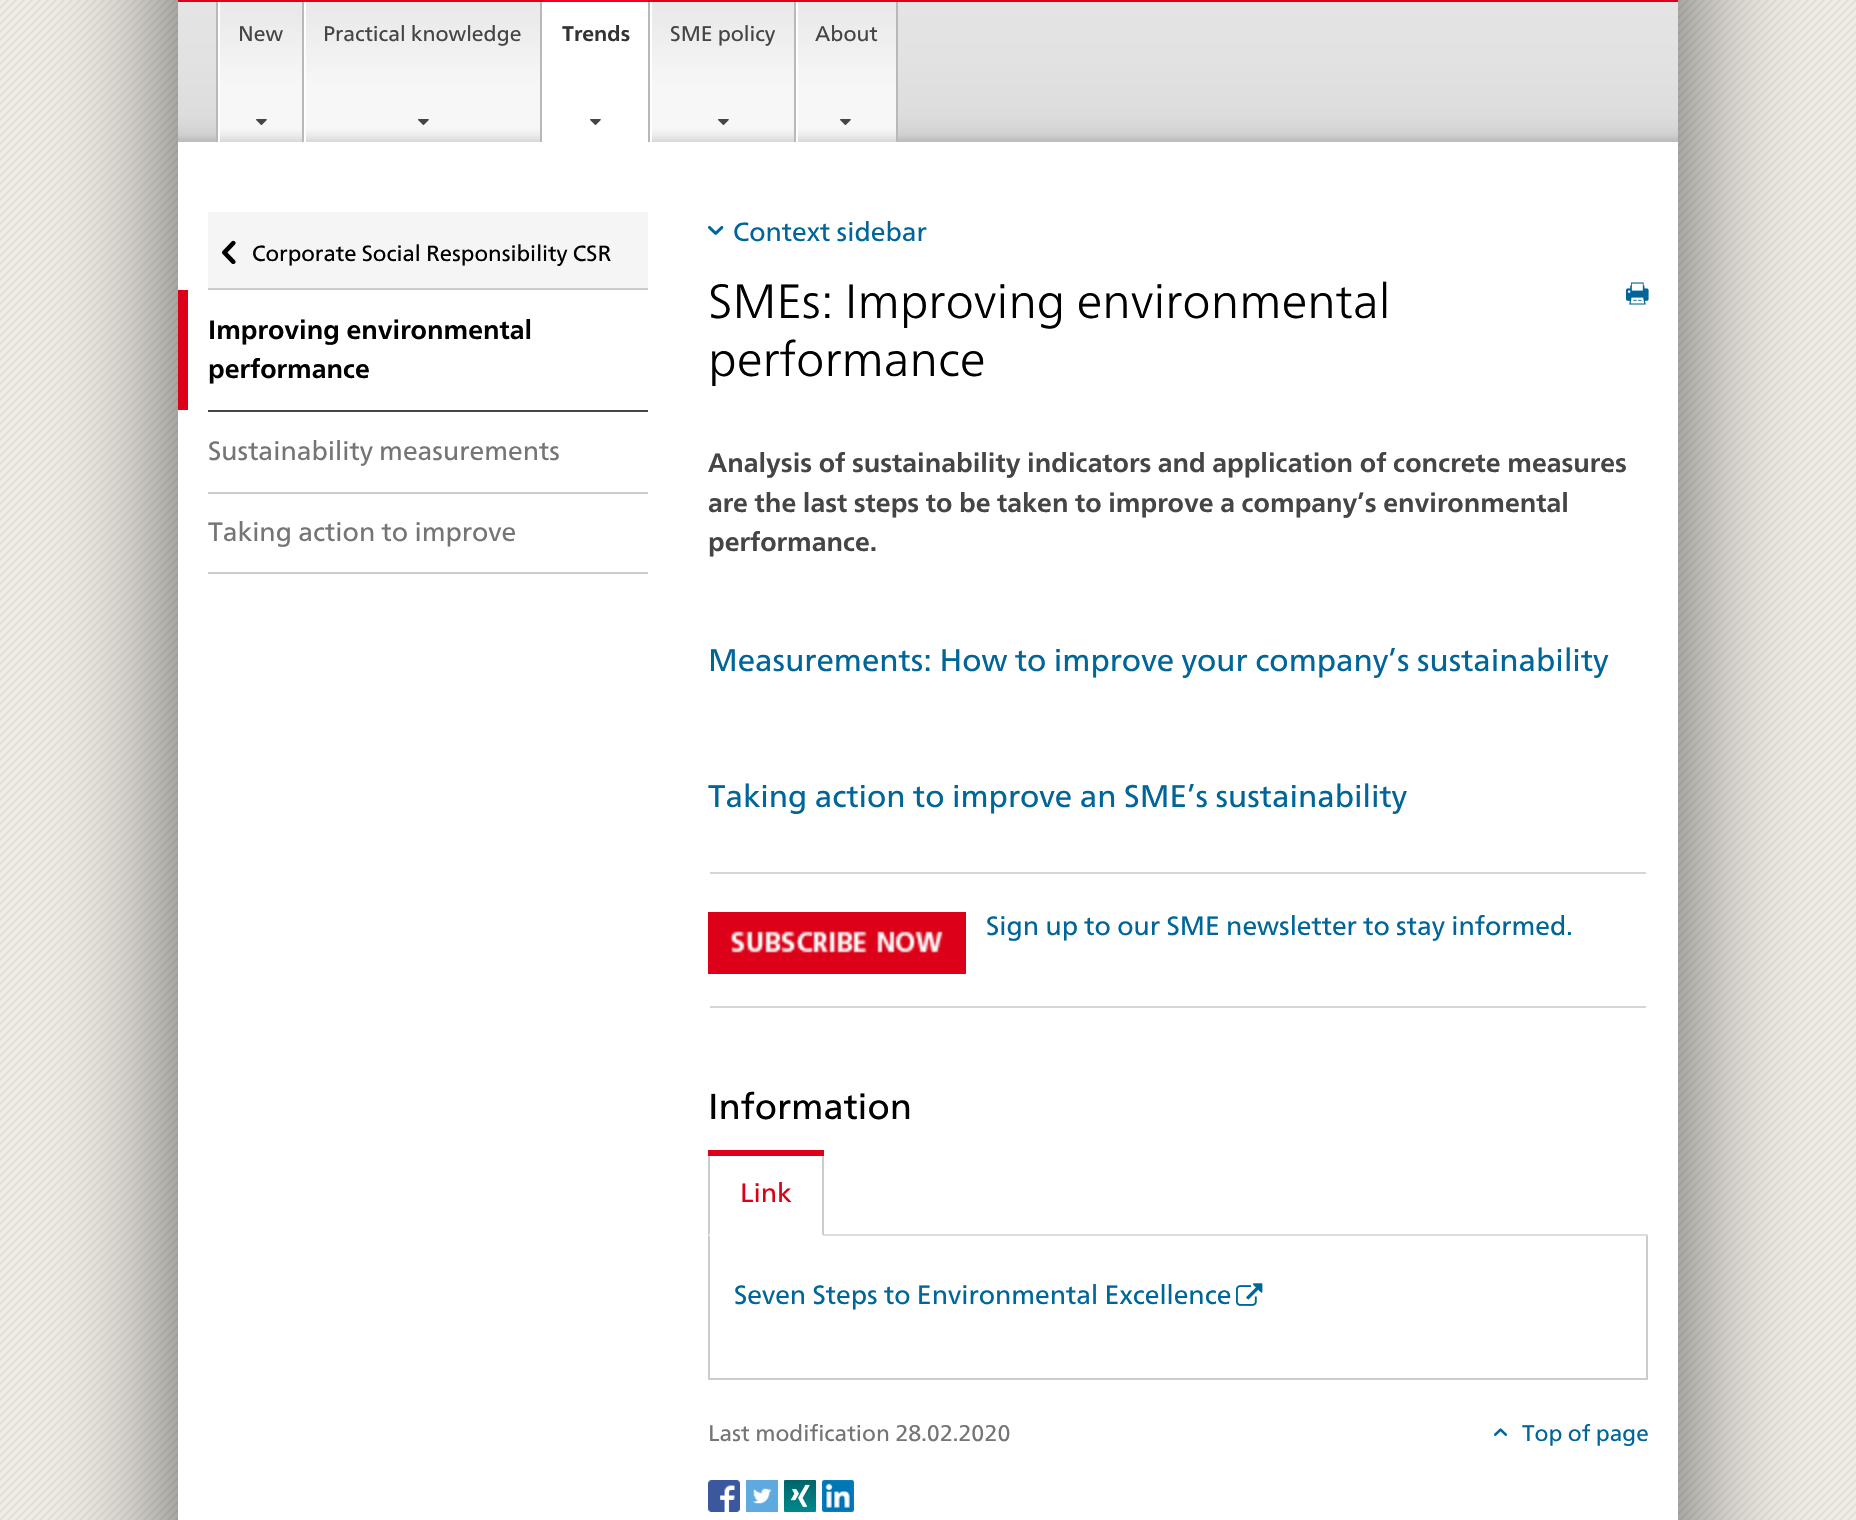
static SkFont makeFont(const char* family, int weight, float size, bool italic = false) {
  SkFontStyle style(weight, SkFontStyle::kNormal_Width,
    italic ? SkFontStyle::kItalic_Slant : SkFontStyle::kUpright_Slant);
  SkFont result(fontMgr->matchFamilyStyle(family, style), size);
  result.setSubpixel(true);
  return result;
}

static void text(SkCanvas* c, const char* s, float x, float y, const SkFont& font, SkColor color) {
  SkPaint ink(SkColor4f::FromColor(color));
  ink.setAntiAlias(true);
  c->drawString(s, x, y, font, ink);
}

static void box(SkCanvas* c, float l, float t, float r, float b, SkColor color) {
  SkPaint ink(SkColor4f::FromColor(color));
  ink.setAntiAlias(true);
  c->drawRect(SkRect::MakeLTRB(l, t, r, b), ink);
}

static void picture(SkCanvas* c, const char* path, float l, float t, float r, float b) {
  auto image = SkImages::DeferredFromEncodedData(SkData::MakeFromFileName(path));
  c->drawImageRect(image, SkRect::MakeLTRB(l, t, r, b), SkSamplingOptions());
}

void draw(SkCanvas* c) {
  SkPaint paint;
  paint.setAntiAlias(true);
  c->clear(0xffffffff);
  picture(c, "img_01.png", 0, 0, 1856, 1520);
  paint.setColor(0x99000000);
  paint.setMaskFilter(SkMaskFilter::MakeBlur(kNormal_SkBlurStyle, 60));
  c->drawRect(SkRect::MakeLTRB(178, -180, 1678, 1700), paint);
  paint.setMaskFilter(nullptr);
  box(c, 178, 142, 1678, 1520, 0xffffffff);
  {
    const SkColor colors[] = {0xffe4e4e4, 0xffe2e2e2, 0xffdddddd, 0xffd5d5d5, 0xffcfcfcf, 0xffbebebe};
    const float stops[] = {0, 0.39f, 0.79f, 0.91f, 0.95f, 0.99f};
    const SkPoint ends[] = {{928, 2}, {928, 142}};
    paint.setShader(SkGradientShader::MakeLinear(ends, colors, stops, 6, SkTileMode::kClamp));
    paint.setAlpha(255);
  }
  c->drawRect(SkRect::MakeLTRB(178, 2, 1678, 142), paint);
  box(c, 178, 0, 1678, 2, 0xffdc0018);
  box(c, 216, 2, 218, 142, 0xffb8b8b8);
  box(c, 302, 2, 304, 142, 0xffb8b8b8);
  box(c, 218, 2, 220, 142, 0xffffffff);
  {
    const SkColor colors[] = {0xffe8e8e8, 0xfff7f7f7, 0xfff7f7f7, 0xfff5f5f5, 0xffececec, 0xffd7d7d7};
    const float stops[] = {0, 0.61f, 0.89f, 0.91f, 0.95f, 1};
    const SkPoint ends[] = {{261, 2}, {261, 142}};
    paint.setShader(SkGradientShader::MakeLinear(ends, colors, stops, 6, SkTileMode::kClamp));
    paint.setAlpha(255);
  }
  c->drawRect(SkRect::MakeLTRB(220, 2, 302, 142), paint);
  SkFont face1 = makeFont("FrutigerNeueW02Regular", 400, 21.1f);
  text(c, "New", 238, 41, face1, 0xff454545);
  picture(c, "img_02.png", 256, 119, 267, 125);
  box(c, 540, 2, 542, 142, 0xffb8b8b8);
  box(c, 304, 2, 306, 142, 0xffffffff);
  {
    const SkColor colors[] = {0xffe8e8e8, 0xfff7f7f7, 0xfff7f7f7, 0xfff5f5f5, 0xffececec, 0xffd7d7d7};
    const float stops[] = {0, 0.61f, 0.89f, 0.91f, 0.95f, 1};
    const SkPoint ends[] = {{423, 2}, {423, 142}};
    paint.setShader(SkGradientShader::MakeLinear(ends, colors, stops, 6, SkTileMode::kClamp));
    paint.setAlpha(255);
  }
  c->drawRect(SkRect::MakeLTRB(306, 2, 540, 142), paint);
  text(c, "Practical knowledge", 323, 41, face1, 0xff454545);
  picture(c, "img_02.png", 418, 119, 429, 125);
  box(c, 648, 2, 650, 142, 0xffb8b8b8);
  box(c, 542, 2, 648, 142, 0xffffffff);
  box(c, 544, 0, 648, 2, 0xfff7001d);
  SkFont face2 = makeFont("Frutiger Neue", 700, 21.1f);
  text(c, "Trends", 562, 41, face2, 0xff333333);
  picture(c, "img_03.png", 590, 119, 601, 125);
  box(c, 794, 2, 796, 142, 0xffb8b8b8);
  box(c, 650, 2, 652, 142, 0xffffffff);
  {
    const SkColor colors[] = {0xffe8e8e8, 0xfff7f7f7, 0xfff7f7f7, 0xfff5f5f5, 0xffececec, 0xffd7d7d7};
    const float stops[] = {0, 0.61f, 0.89f, 0.91f, 0.95f, 1};
    const SkPoint ends[] = {{723, 2}, {723, 142}};
    paint.setShader(SkGradientShader::MakeLinear(ends, colors, stops, 6, SkTileMode::kClamp));
    paint.setAlpha(255);
  }
  c->drawRect(SkRect::MakeLTRB(652, 2, 794, 142), paint);
  text(c, "SME policy", 670, 41, face1, 0xff454545);
  picture(c, "img_02.png", 718, 119, 729, 125);
  box(c, 896, 2, 898, 142, 0xffb8b8b8);
  box(c, 796, 2, 798, 142, 0xffffffff);
  {
    const SkColor colors[] = {0xffe8e8e8, 0xfff7f7f7, 0xfff7f7f7, 0xfff5f5f5, 0xffececec, 0xffd7d7d7};
    const float stops[] = {0, 0.61f, 0.89f, 0.91f, 0.95f, 1};
    const SkPoint ends[] = {{847, 2}, {847, 142}};
    paint.setShader(SkGradientShader::MakeLinear(ends, colors, stops, 6, SkTileMode::kClamp));
    paint.setAlpha(255);
  }
  c->drawRect(SkRect::MakeLTRB(798, 2, 896, 142), paint);
  text(c, "About", 815, 41, face1, 0xff454545);
  picture(c, "img_02.png", 840, 119, 851, 125);
  box(c, 208, 212, 648, 288, 0xfff5f5f5);
  box(c, 208, 288, 648, 290, 0xffcccccc);
  picture(c, "img_04.png", 222, 240, 236, 265);
  SkFont face3 = makeFont("FrutigerNeueW02Regular", 400, 22);
  text(c, "Corporate Social Responsibility CSR", 252, 261, face3, 0xff000000);
  box(c, 208, 410, 648, 412, 0xff454545);
  box(c, 178, 290, 188, 410, 0xffdc0018);
  SkFont face4 = makeFont("Frutiger Neue", 700, 26.4f);
  text(c, "Improving environmental", 208, 339, face4, 0xff000000);
  text(c, "performance", 208, 378, face4, 0xff000000);
  box(c, 208, 492, 648, 494, 0xffcccccc);
  SkFont face5 = makeFont("FrutigerNeueW02Regular", 400, 26.4f);
  text(c, "Sustainability measurements", 208, 460, face5, 0xff757575);
  box(c, 208, 572, 648, 574, 0xffcccccc);
  text(c, "Taking action to improve", 208, 541, face5, 0xff757575);
  picture(c, "img_05.png", 708, 225, 724, 235);
  text(c, "Context sidebar", 733, 241, face5, 0xff006699);
  SkFont face6 = makeFont("Frutiger Neue", 300, 48);
  text(c, "SMEs: Improving environmental", 708, 318, face6, 0xff000000);
  text(c, "performance", 708, 376, face6, 0xff000000);
  picture(c, "img_06.png", 1626, 282, 1649, 305);
  text(c, "Analysis of sustainability indicators and application of concrete measures", 708, 472, face4, 0xff454545);
  text(c, "are the last steps to be taken to improve a company’s environmental", 708, 512, face4, 0xff454545);
  text(c, "performance.", 708, 551, face4, 0xff454545);
  SkFont face7 = makeFont("FrutigerNeueW02Regular", 400, 31.2f);
  text(c, "Measurements: How to improve your company’s sustainability", 708, 671, face7, 0xff006699);
  text(c, "Taking action to improve an SME’s sustainability", 708, 807, face7, 0xff006699);
  box(c, 710, 872, 1646, 874, 0xffd5d5d5);
  picture(c, "img_07.png", 708, 912, 966, 974);
  text(c, "Sign up to our SME newsletter to stay informed.", 986, 935, face5, 0xff006699);
  box(c, 710, 1006, 1646, 1008, 0xffd5d5d5);
  SkFont face8 = makeFont("FrutigerNeueW02Regular", 400, 36);
  text(c, "Information", 708, 1119, face8, 0xff000000);
  box(c, 824, 1234, 1648, 1236, 0xffdddddd);
  paint.setShader(nullptr);
  paint.setColor(0xffcccccc);
  c->drawPath(SkPathBuilder().moveTo(824, 1150).lineTo(824, 1236).lineTo(822, 1234).lineTo(822, 1152).close().detach(), paint);
  c->drawPath(SkPathBuilder().moveTo(708, 1236).lineTo(708, 1150).lineTo(710, 1152).lineTo(710, 1234).close().detach(), paint);
  box(c, 708, 1150, 824, 1156, 0xffdc0018);
  text(c, "Link", 740, 1202, face5, 0xffdc0018);
  box(c, 1646, 1236, 1648, 1380, 0xffcccccc);
  box(c, 708, 1378, 1648, 1380, 0xffcccccc);
  box(c, 708, 1236, 710, 1380, 0xffcccccc);
  text(c, "Seven Steps to Environmental Excellence", 734, 1304, face5, 0xff006699);
  picture(c, "img_08.png", 1236, 1283, 1263, 1306);
  SkFont face9 = makeFont("FrutigerNeueW02Regular", 400, 22.5f);
  text(c, "Last modification 28.02.2020", 708, 1441, face9, 0xff757575);
  picture(c, "img_09.png", 1494, 1428, 1507, 1436);
  text(c, "Top of page", 1522, 1441, face9, 0xff006699);
  picture(c, "img_10.png", 708, 1480, 740, 1512);
  picture(c, "img_11.png", 746, 1480, 778, 1512);
  picture(c, "img_12.png", 784, 1480, 816, 1512);
  picture(c, "img_13.png", 822, 1480, 854, 1512);
}
